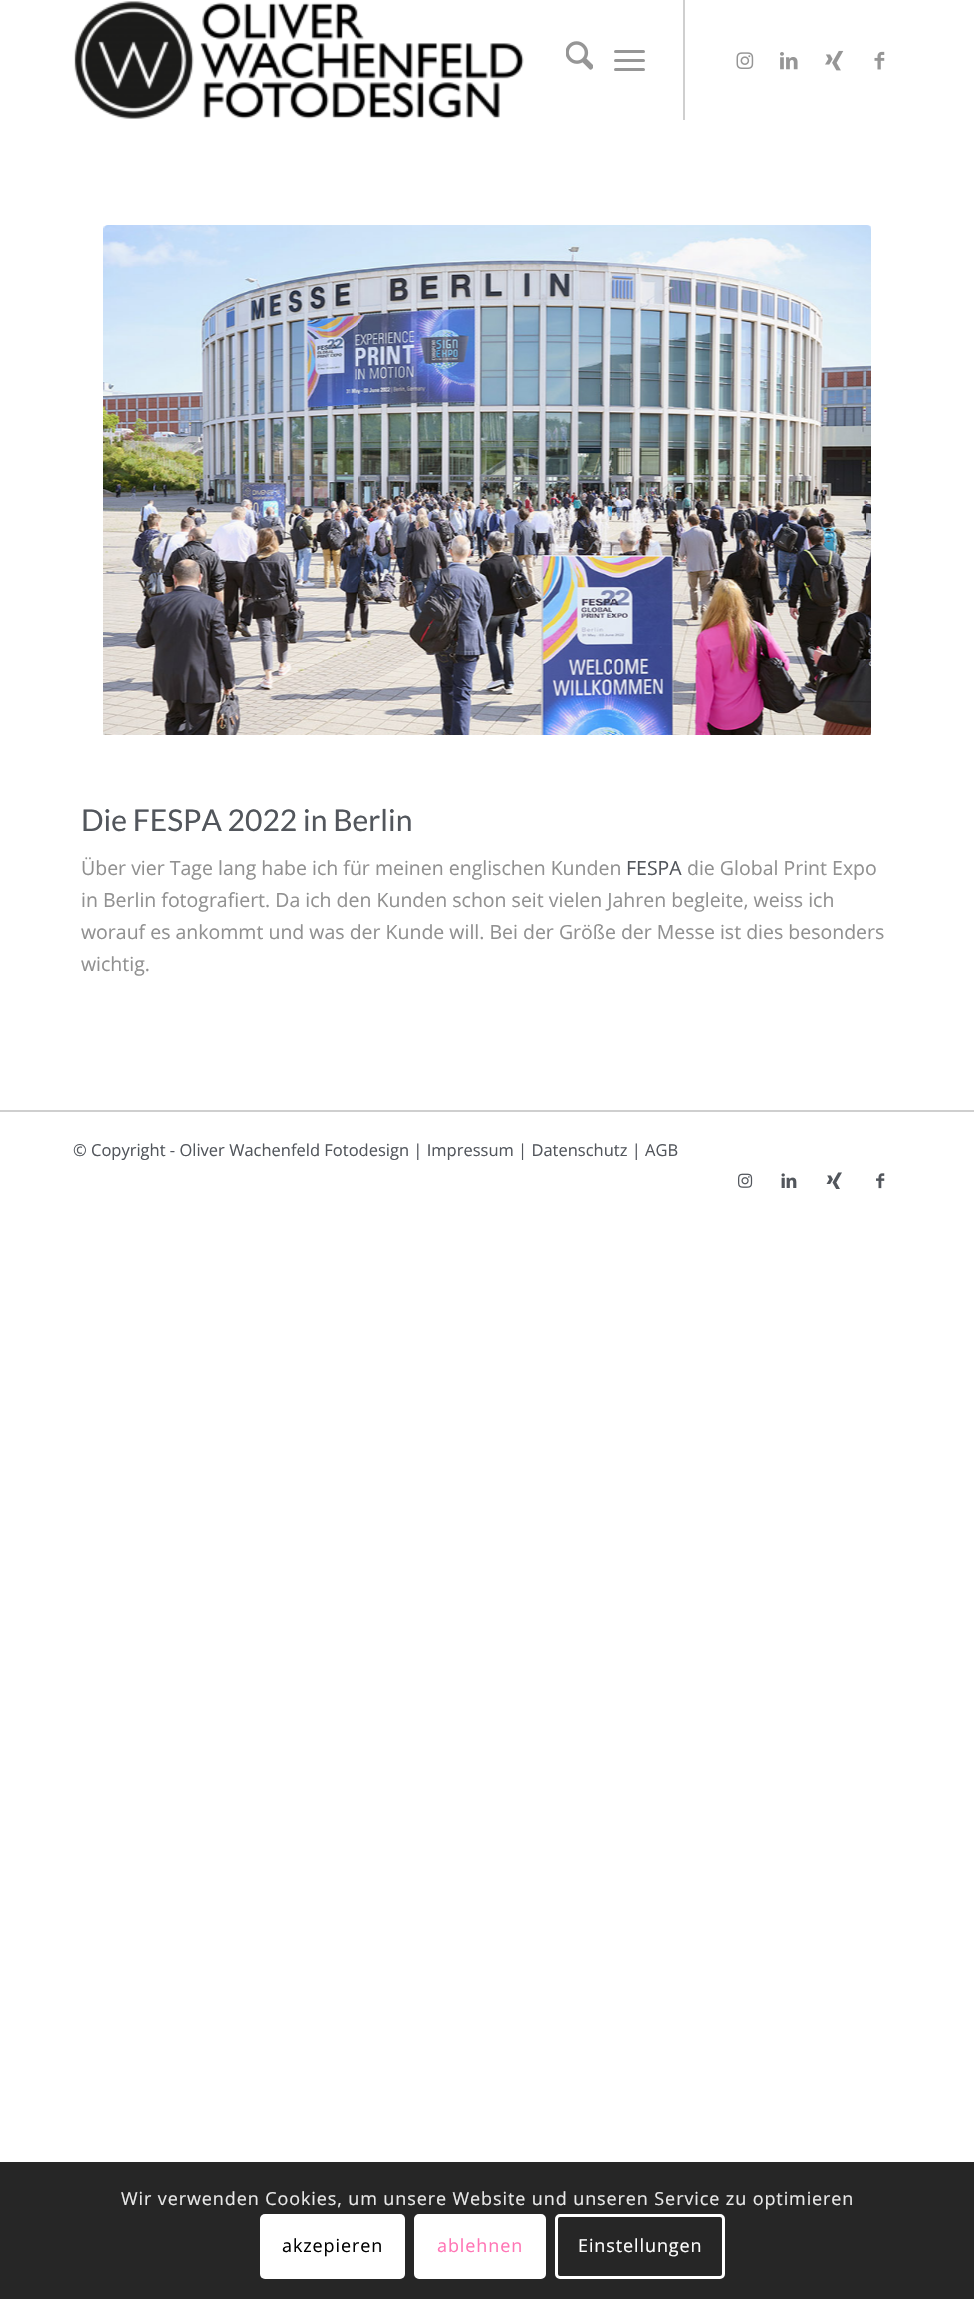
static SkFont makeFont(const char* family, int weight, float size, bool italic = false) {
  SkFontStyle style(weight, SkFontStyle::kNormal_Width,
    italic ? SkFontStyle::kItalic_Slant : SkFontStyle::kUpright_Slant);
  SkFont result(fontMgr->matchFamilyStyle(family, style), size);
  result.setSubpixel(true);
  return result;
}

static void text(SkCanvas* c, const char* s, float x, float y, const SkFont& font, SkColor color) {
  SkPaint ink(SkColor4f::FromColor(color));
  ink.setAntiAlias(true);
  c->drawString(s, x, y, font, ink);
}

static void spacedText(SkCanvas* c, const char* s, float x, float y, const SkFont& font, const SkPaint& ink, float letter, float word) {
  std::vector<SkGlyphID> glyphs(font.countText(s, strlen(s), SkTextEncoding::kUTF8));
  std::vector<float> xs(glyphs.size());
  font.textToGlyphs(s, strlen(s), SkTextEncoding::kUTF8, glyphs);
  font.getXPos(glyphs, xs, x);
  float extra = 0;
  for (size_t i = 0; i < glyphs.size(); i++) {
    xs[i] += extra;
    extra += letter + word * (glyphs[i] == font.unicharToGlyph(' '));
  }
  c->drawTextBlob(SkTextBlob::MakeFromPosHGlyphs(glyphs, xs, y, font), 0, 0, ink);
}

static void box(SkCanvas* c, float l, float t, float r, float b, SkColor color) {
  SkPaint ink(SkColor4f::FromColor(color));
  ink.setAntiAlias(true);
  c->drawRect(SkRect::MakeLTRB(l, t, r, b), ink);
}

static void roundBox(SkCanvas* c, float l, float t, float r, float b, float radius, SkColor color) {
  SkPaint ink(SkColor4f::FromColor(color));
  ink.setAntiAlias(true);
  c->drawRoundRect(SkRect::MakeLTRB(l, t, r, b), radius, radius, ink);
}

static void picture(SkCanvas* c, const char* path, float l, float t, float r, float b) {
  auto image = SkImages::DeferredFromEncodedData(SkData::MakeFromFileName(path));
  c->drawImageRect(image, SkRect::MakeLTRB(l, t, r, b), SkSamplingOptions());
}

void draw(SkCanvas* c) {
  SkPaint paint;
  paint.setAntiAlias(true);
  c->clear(0xffffffff);
  picture(c, "img_01.png", 74, 1, 524, 119);
  box(c, 683, 0, 685, 120, 0xffcfcfcf);
  picture(c, "img_02.png", 566, 41, 593, 70);
  roundBox(c, 614, 59, 645, 62, 1.5f, 0xff969696);
  roundBox(c, 614, 50, 645, 53, 1.5f, 0xff969696);
  roundBox(c, 614, 68, 645, 71, 1.5f, 0xff969696);
  picture(c, "img_03.png", 736, 52, 754, 69);
  picture(c, "img_04.png", 780, 52, 798, 70);
  picture(c, "img_05.png", 825, 50, 844, 71);
  picture(c, "img_06.png", 874, 51, 885, 70);
  picture(c, "img_07.png", 103, 225, 871, 735);
  SkFont face1 = makeFont("Lato", 400, 30);
  text(c, "Die FESPA 2022 in Berlin", 81, 831, face1, 0xff52565c);
  SkFont face2 = makeFont("Open Sans", 400, 19.5f);
  text(c, "Über vier Tage lang habe ich für meinen englischen Kunden", 81, 875, face2, 0xff919191);
  text(c, "FESPA", 626, 875, face2, 0xff52565c);
  text(c, "die Global Print Expo", 687, 875, face2, 0xff919191);
  text(c, "in Berlin fotografiert. Da ich den Kunden schon seit vielen Jahren begleite, weiss ich", 81, 907, face2, 0xff919191);
  text(c, "worauf es ankommt und was der Kunde will. Bei der Größe der Messe ist dies besonders", 81, 939, face2, 0xff919191);
  text(c, "wichtig.", 81, 971, face2, 0xff919191);
  box(c, 0, 1110, 974, 1112, 0xffcfcfcf);
  SkFont face3 = makeFont("Open Sans", 400, 16.5f);
  text(c, "© Copyright - Oliver Wachenfeld Fotodesign | Impressum | Datenschutz | AGB", 73, 1156, face3, 0xff52565c);
  picture(c, "img_08.png", 738, 1173, 753, 1188);
  picture(c, "img_09.png", 781, 1173, 797, 1188);
  picture(c, "img_10.png", 826, 1172, 842, 1189);
  picture(c, "img_11.png", 876, 1173, 885, 1189);
  box(c, 0, 2162, 974, 2299, 0xff262626);
  SkFont face4 = makeFont("Open Sans", 400, 18);
  paint.setColor(0xffe9e9e9);
  spacedText(c, "Wir verwenden Cookies, um unsere Website und unseren Service zu optimieren", 121, 2205, face4, paint, 0.9f, 0);
  roundBox(c, 260, 2214, 405, 2279, 5, 0xffffffff);
  paint.setColor(0xff000000);
  spacedText(c, "akzepieren", 282, 2252, face4, paint, 0.9f, 0);
  paint.setColor(0xffffffff);
  c->drawRoundRect(SkRect::MakeLTRB(415.5f, 2215.5f, 544.5f, 2277.5f), 3.5f, 3.5f, paint);
  paint.setStyle(SkPaint::kStroke_Style);
  paint.setStrokeWidth(3);
  c->drawRoundRect(SkRect::MakeLTRB(415.5f, 2215.5f, 544.5f, 2277.5f), 3.5f, 3.5f, paint);
  paint.setStyle(SkPaint::kFill_Style);
  paint.setColor(0xffff75b5);
  spacedText(c, "ablehnen", 437, 2252, face4, paint, 0.9f, 0);
  paint.setStyle(SkPaint::kStroke_Style);
  paint.setColor(0xffffffff);
  c->drawRoundRect(SkRect::MakeLTRB(556.5f, 2215.5f, 723.5f, 2277.5f), 3.5f, 3.5f, paint);
  paint.setStyle(SkPaint::kFill_Style);
  spacedText(c, "Einstellungen", 578, 2252, face4, paint, 0.9f, 0);
}
